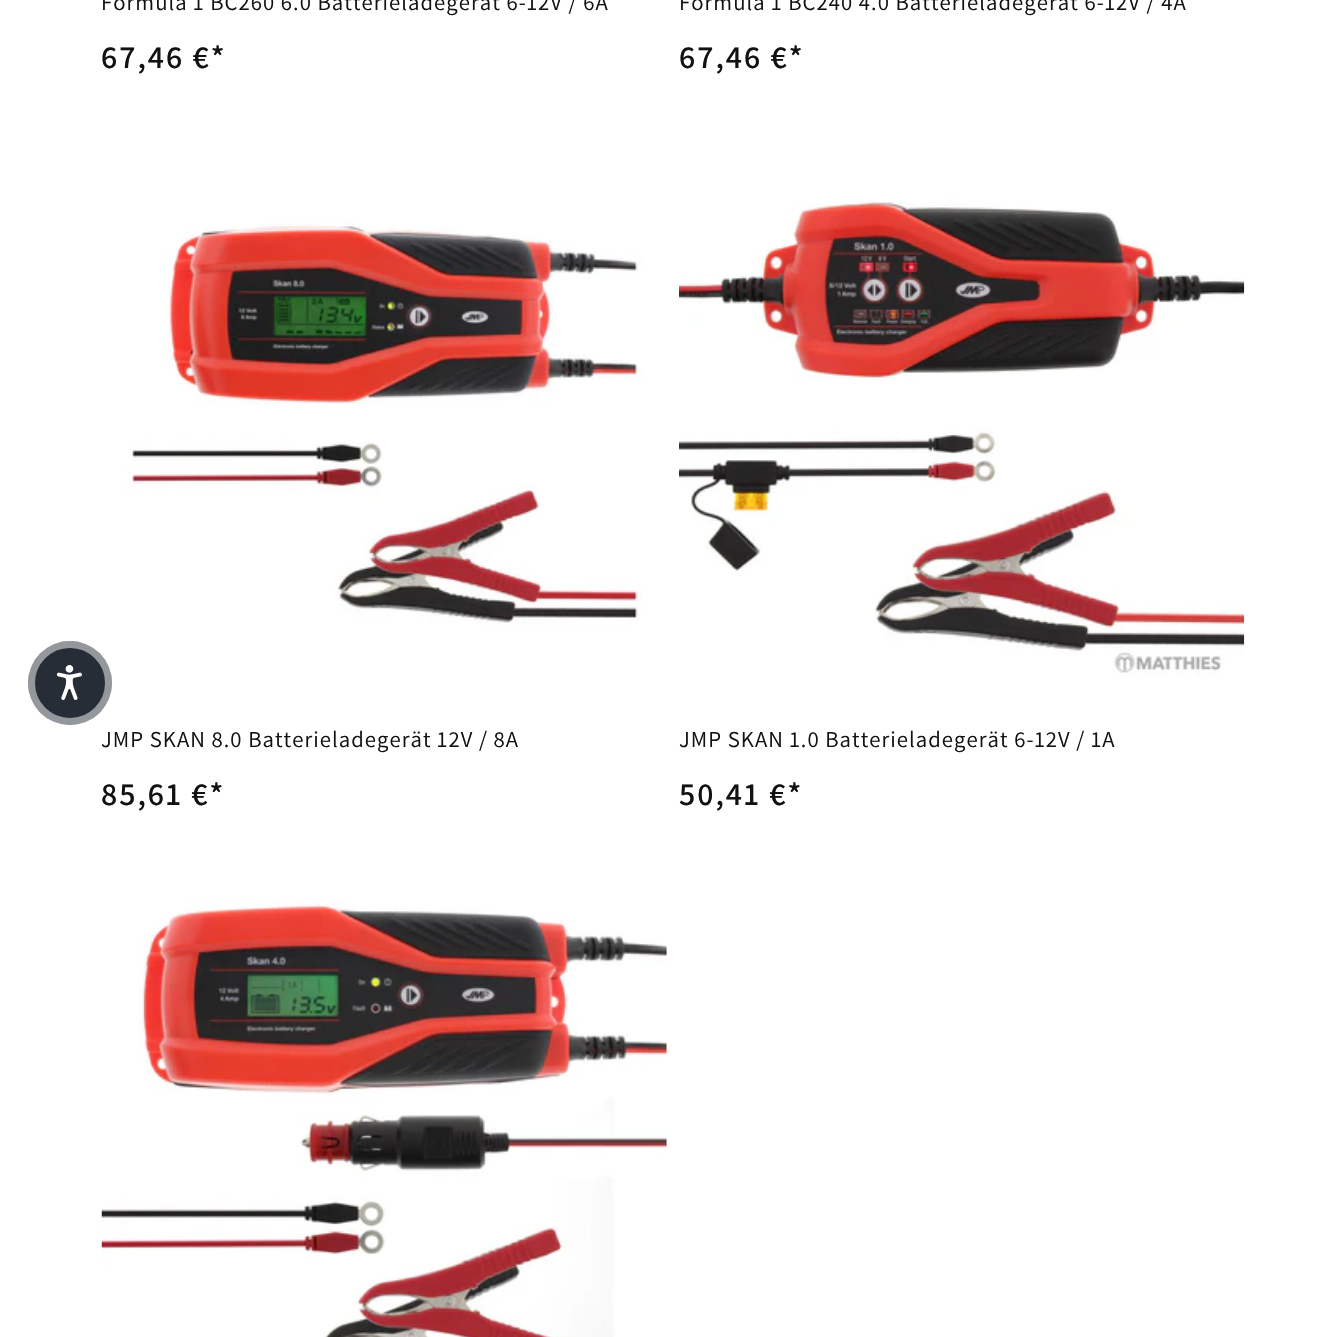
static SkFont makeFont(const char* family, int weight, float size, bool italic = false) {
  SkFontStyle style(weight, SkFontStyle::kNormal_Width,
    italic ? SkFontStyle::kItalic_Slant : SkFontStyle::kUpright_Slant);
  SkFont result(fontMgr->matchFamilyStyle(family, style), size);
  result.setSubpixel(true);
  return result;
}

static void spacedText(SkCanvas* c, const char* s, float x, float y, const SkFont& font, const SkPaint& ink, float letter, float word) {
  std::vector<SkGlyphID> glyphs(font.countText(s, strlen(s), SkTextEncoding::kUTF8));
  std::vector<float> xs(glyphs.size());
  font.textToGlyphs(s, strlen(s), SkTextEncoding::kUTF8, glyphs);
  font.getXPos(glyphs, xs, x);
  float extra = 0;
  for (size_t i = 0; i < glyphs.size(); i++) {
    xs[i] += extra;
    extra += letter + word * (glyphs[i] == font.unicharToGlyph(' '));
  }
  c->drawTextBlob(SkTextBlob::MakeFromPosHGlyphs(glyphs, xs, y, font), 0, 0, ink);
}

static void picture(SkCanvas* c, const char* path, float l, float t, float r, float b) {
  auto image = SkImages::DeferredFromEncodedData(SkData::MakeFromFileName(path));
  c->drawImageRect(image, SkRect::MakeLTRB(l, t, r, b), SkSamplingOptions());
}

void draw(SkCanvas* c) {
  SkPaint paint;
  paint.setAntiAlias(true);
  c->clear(0xffffffff);
  picture(c, "img_02.png", 102, 128, 665, 691);
  paint.setColor(0xff272d36);
  c->drawCircle(70, 683, 42, paint);
  paint.setStyle(SkPaint::kStroke_Style);
  paint.setStrokeWidth(7);
  paint.setColor(0x80ffffff);
  c->drawCircle(70, 683, 38.5f, paint);
  picture(c, "img_01.png", 56, 665, 82, 700);
  SkFont face1 = makeFont("Assistant", 400, 22.75f);
  paint.setStyle(SkPaint::kFill_Style);
  paint.setColor(0xff121212);
  spacedText(c, "Formula 1 BC260 6.0 Batterieladegerät 6-12V / 6A", 101, 10, face1, paint, 1.05f, 0);
  SkFont face2 = makeFont("Assistant", 600, 32);
  spacedText(c, "67,46 €*", 101, 68, face2, paint, 2, 0);
  spacedText(c, "Formula 1 BC240 4.0 Batterieladegerät 6-12V / 4A", 679, 10, face1, paint, 1.05f, 0);
  spacedText(c, "67,46 €*", 679, 68, face2, paint, 2, 0);
  spacedText(c, "JMP SKAN 8.0 Batterieladegerät 12V / 8A", 101, 747, face1, paint, 1.05f, 0);
  spacedText(c, "85,61 €*", 101, 805, face2, paint, 2, 0);
  picture(c, "img_03.png", 679, 128, 1245, 691);
  spacedText(c, "JMP SKAN 1.0 Batterieladegerät 6-12V / 1A", 679, 747, face1, paint, 1.05f, 0);
  spacedText(c, "50,41 €*", 679, 805, face2, paint, 2, 0);
  picture(c, "img_04.png", 101, 865, 667, 1337);
}
